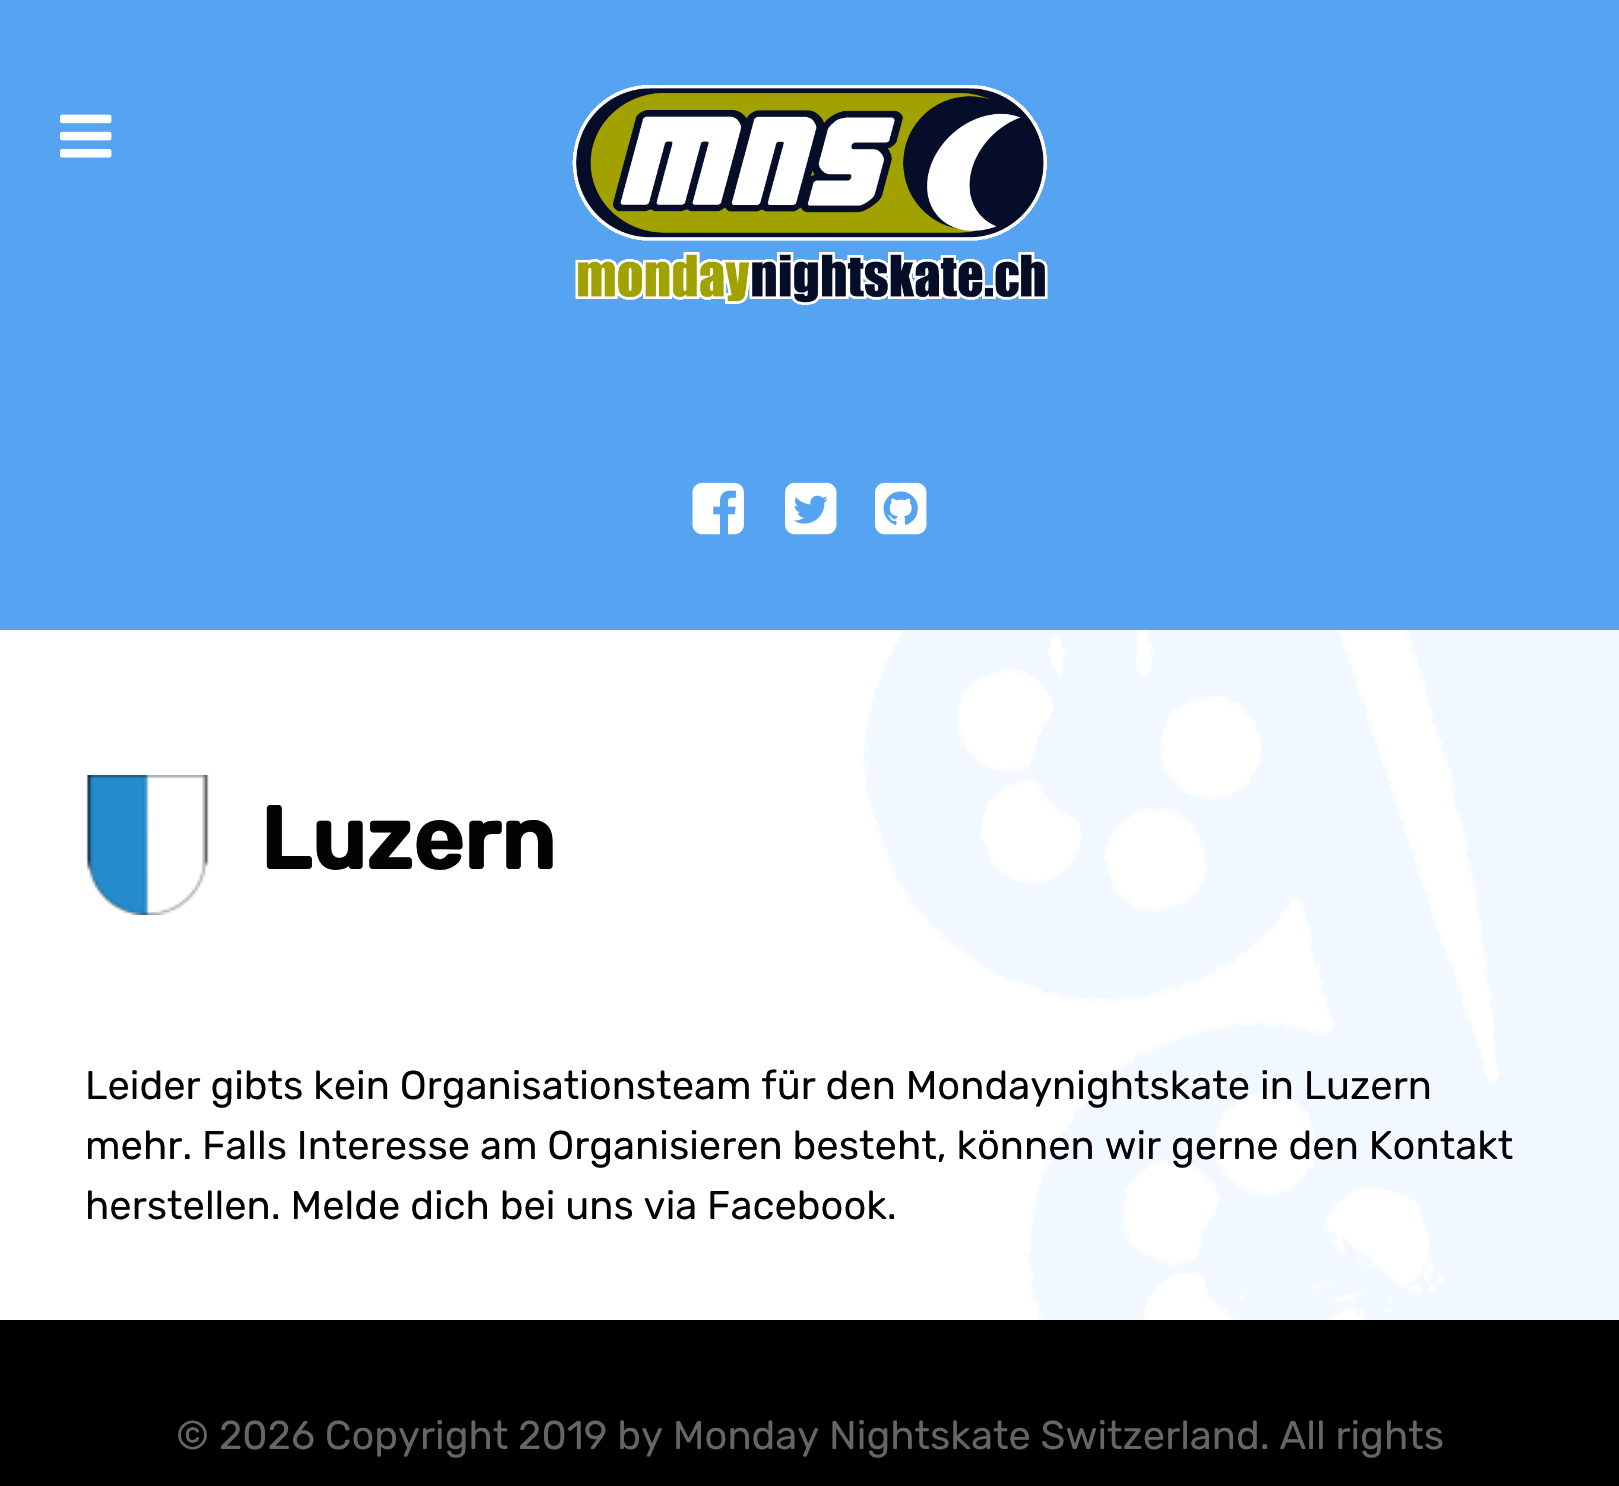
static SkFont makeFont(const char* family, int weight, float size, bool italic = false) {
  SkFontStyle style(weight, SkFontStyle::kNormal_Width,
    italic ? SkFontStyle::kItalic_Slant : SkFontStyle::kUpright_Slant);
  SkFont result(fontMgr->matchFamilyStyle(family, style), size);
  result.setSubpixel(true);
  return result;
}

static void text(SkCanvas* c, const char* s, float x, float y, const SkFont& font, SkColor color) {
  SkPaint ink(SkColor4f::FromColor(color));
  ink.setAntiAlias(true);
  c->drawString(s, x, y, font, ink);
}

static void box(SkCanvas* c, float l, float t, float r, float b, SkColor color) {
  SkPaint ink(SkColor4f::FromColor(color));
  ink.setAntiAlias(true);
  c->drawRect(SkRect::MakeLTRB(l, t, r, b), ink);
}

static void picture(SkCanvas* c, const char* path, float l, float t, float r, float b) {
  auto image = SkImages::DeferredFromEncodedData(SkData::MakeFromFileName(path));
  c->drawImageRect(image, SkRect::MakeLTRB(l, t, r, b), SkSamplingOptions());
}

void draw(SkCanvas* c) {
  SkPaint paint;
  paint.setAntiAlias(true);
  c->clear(0xffffffff);
  picture(c, "img_01.png", 860, 630, 1619, 1320);
  box(c, 0, 0, 1619, 630, 0xff56a3f2);
  picture(c, "img_02.png", 572, 85, 1048, 305);
  picture(c, "img_03.png", 692, 482, 744, 535);
  picture(c, "img_04.png", 785, 482, 837, 535);
  picture(c, "img_05.png", 875, 482, 927, 535);
  picture(c, "img_06.png", 60, 114, 112, 158);
  picture(c, "img_07.png", 86, 775, 209, 915);
  SkFont face1 = makeFont("Rubik", 700, 88);
  text(c, "Luzern", 260, 869, face1, 0xff030303);
  SkFont face2 = makeFont("Rubik", 400, 40);
  text(c, "Leider gibts kein Organisationsteam für den Mondaynightskate in Luzern", 85, 1099, face2, 0xff030303);
  text(c, "mehr. Falls Interesse am Organisieren besteht, können wir gerne den Kontakt", 85, 1159, face2, 0xff030303);
  text(c, "herstellen. Melde dich bei uns via Facebook.", 85, 1219, face2, 0xff030303);
  box(c, 0, 1320, 1619, 1486, 0xff000000);
  text(c, "© 2026 Copyright 2019 by Monday Nightskate Switzerland. All rights", 176, 1449, face2, 0xff666666);
}
